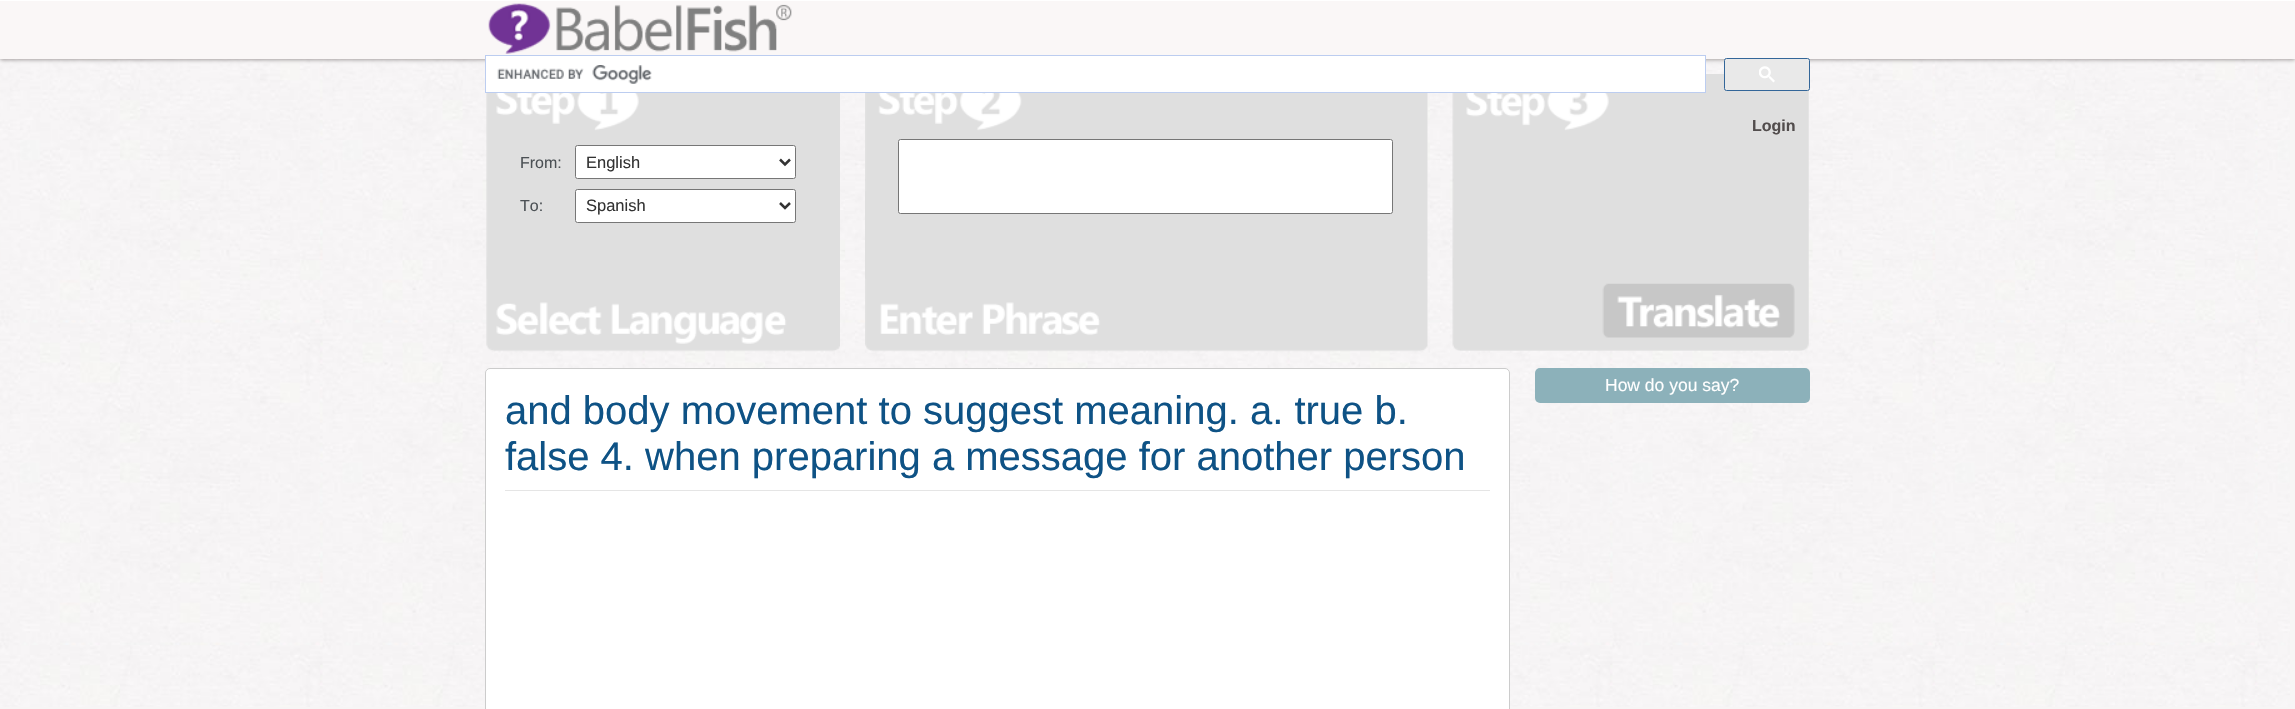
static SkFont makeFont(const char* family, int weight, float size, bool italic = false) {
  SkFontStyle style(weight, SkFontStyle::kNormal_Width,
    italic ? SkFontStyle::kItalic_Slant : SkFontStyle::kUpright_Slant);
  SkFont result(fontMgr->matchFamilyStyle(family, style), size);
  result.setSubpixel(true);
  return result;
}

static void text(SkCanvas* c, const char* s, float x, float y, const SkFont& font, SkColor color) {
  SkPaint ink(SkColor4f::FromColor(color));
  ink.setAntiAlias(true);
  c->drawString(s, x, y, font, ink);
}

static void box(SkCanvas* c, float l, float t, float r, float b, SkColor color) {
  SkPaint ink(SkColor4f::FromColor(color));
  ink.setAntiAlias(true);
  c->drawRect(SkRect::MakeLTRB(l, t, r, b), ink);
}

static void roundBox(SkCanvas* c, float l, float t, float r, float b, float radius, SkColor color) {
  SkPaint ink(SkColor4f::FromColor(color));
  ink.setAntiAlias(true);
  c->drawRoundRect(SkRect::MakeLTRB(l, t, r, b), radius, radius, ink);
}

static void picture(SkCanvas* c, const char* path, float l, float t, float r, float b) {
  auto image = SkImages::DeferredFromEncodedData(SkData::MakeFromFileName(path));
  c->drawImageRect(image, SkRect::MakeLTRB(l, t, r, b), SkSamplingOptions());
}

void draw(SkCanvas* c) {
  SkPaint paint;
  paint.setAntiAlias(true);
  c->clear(0xfff7f5f5);
  picture(c, "img_01.png", 0, 59, 2290, 707);
  paint.setColor(0x66221919);
  paint.setMaskFilter(SkMaskFilter::MakeBlur(kNormal_SkBlurStyle, 2));
  c->drawRect(SkRect::MakeLTRB(0, 1, 2295, 60), paint);
  paint.setMaskFilter(nullptr);
  box(c, 0, 1, 2295, 59, 0xfffaf7f7);
  box(c, 0, 0, 2295, 1, 0xffffffff);
  picture(c, "img_02.png", 488, 3, 792, 54);
  picture(c, "img_07.png", 1452, 74, 1809, 351);
  paint.setColor(0xffffffff);
  c->drawRect(SkRect::MakeLTRB(485.5f, 55.5f, 1705.5f, 92.5f), paint);
  paint.setStyle(SkPaint::kStroke_Style);
  paint.setStrokeWidth(1);
  paint.setColor(0xffbccdf0);
  c->drawRect(SkRect::MakeLTRB(485.5f, 55.5f, 1705.5f, 92.5f), paint);
  picture(c, "img_03.png", 497, 65, 652, 84);
  paint.setStyle(SkPaint::kFill_Style);
  paint.setColor(0xffe9e9e9);
  c->drawRoundRect(SkRect::MakeLTRB(1724.5f, 58.5f, 1809.5f, 90.5f), 2, 2, paint);
  paint.setStyle(SkPaint::kStroke_Style);
  paint.setColor(0xff336699);
  c->drawRoundRect(SkRect::MakeLTRB(1724.5f, 58.5f, 1809.5f, 90.5f), 2, 2, paint);
  picture(c, "img_04.png", 1759, 66, 1775, 83);
  SkFont face1 = makeFont("Liberation Sans", 700, 16);
  text(c, "Login", 1752, 131, face1, 0xff524d4d);
  picture(c, "img_05.png", 486, 93, 840, 352);
  SkFont face2 = makeFont("Liberation Sans", 400, 16);
  text(c, "From:", 520, 168, face2, 0xff4c5155);
  paint.setStyle(SkPaint::kFill_Style);
  paint.setColor(0xffffffff);
  c->drawRoundRect(SkRect::MakeLTRB(575.5f, 145.5f, 795.5f, 178.5f), 2, 2, paint);
  paint.setStyle(SkPaint::kStroke_Style);
  paint.setColor(0xff767676);
  c->drawRoundRect(SkRect::MakeLTRB(575.5f, 145.5f, 795.5f, 178.5f), 2, 2, paint);
  paint.setStrokeWidth(2.5f);
  paint.setColor(0xff333333);
  c->drawPath(SkPathBuilder().moveTo(780, 159.5f).lineTo(785, 164.5f).lineTo(790, 159.5f).detach(), paint);
  SkFont face3 = makeFont("Liberation Sans", 400, 16.5f);
  text(c, "English", 586, 168, face3, 0xff333333);
  text(c, "To:", 520, 211, face2, 0xff4c5155);
  paint.setStyle(SkPaint::kFill_Style);
  paint.setColor(0xffffffff);
  c->drawRoundRect(SkRect::MakeLTRB(575.5f, 189.5f, 795.5f, 222.5f), 2, 2, paint);
  paint.setStyle(SkPaint::kStroke_Style);
  paint.setStrokeWidth(1);
  paint.setColor(0xff767676);
  c->drawRoundRect(SkRect::MakeLTRB(575.5f, 189.5f, 795.5f, 222.5f), 2, 2, paint);
  paint.setStrokeWidth(2.5f);
  paint.setColor(0xff333333);
  c->drawPath(SkPathBuilder().moveTo(780, 203).lineTo(785, 208).lineTo(790, 203).detach(), paint);
  text(c, "Spanish", 586, 211, face3, 0xff333333);
  picture(c, "img_06.png", 865, 93, 1428, 352);
  paint.setStyle(SkPaint::kFill_Style);
  paint.setColor(0xffffffff);
  c->drawRoundRect(SkRect::MakeLTRB(898.5f, 139.5f, 1392.5f, 213.5f), 2, 2, paint);
  paint.setStyle(SkPaint::kStroke_Style);
  paint.setStrokeWidth(1);
  paint.setColor(0xff767676);
  c->drawRoundRect(SkRect::MakeLTRB(898.5f, 139.5f, 1392.5f, 213.5f), 2, 2, paint);
  picture(c, "img_08.png", 1602, 283, 1795, 338);
  roundBox(c, 1535, 368, 1810, 403, 5, 0xff8cb1ba);
  SkFont face4 = makeFont("Liberation Sans", 400, 17.5f);
  text(c, "How do you say?", 1605, 391, face4, 0xffffffff);
  paint.setStyle(SkPaint::kFill_Style);
  paint.setColor(0xffffffff);
  c->drawRoundRect(SkRect::MakeLTRB(485.5f, 368.5f, 1509.5f, 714.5f), 4.5f, 4.5f, paint);
  paint.setStyle(SkPaint::kStroke_Style);
  paint.setColor(0xffcccccc);
  c->drawRoundRect(SkRect::MakeLTRB(485.5f, 368.5f, 1509.5f, 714.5f), 4.5f, 4.5f, paint);
  box(c, 505, 490, 1490, 491, 0xffe5e5e5);
  SkFont face5 = makeFont("Liberation Sans", 400, 40);
  text(c, "and body movement to suggest meaning. a. true b.", 505, 424, face5, 0xff0e5285);
  text(c, "false 4. when preparing a message for another person", 505, 470, face5, 0xff0e5285);
}
